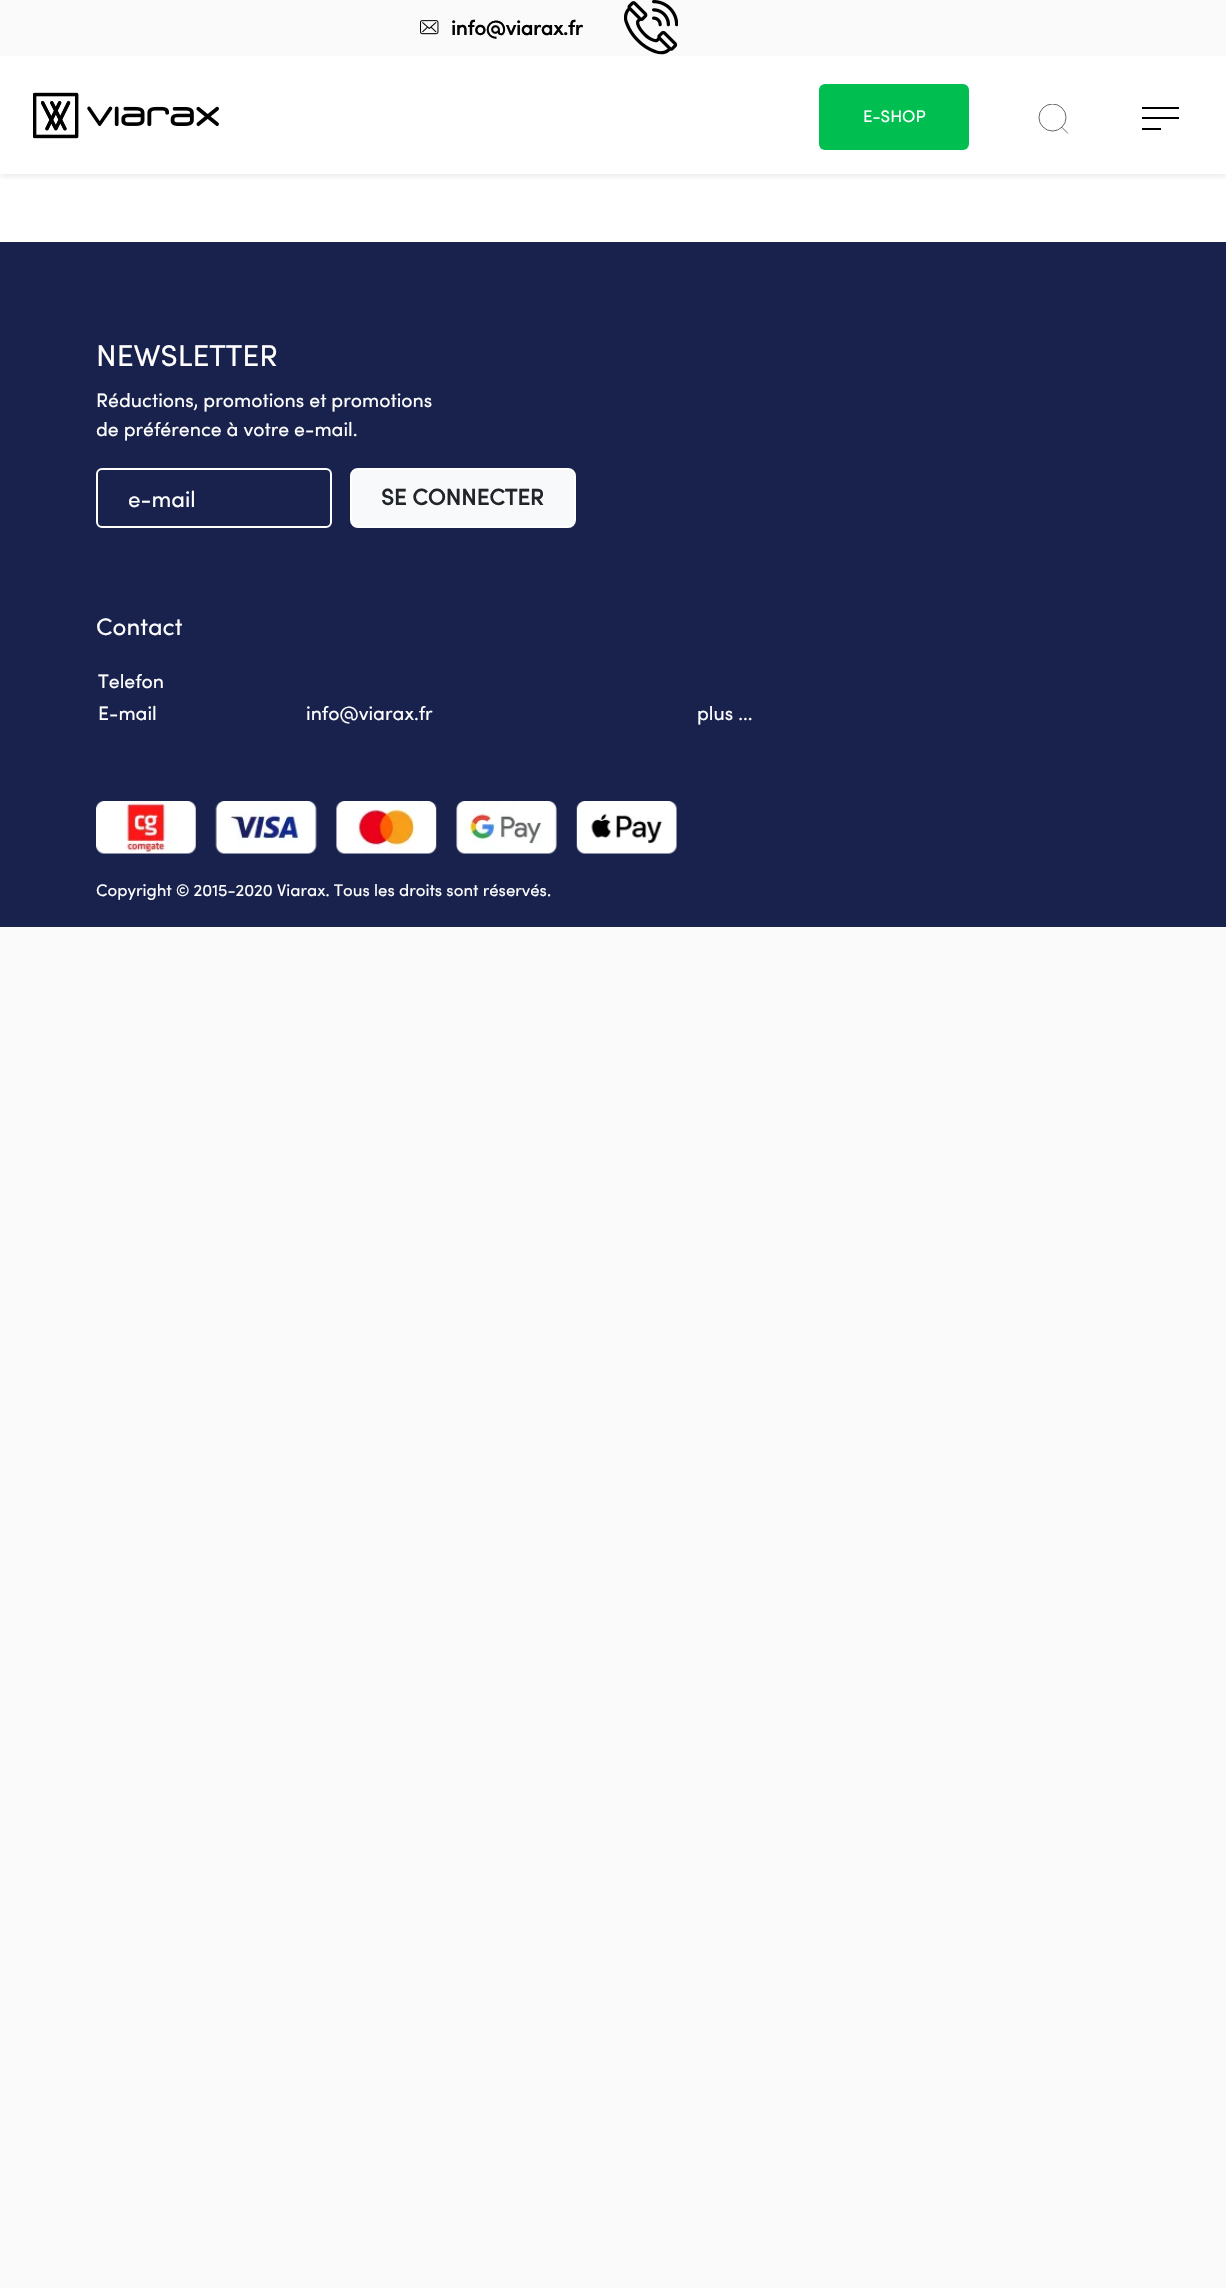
static SkFont makeFont(const char* family, int weight, float size, bool italic = false) {
  SkFontStyle style(weight, SkFontStyle::kNormal_Width,
    italic ? SkFontStyle::kItalic_Slant : SkFontStyle::kUpright_Slant);
  SkFont result(fontMgr->matchFamilyStyle(family, style), size);
  result.setSubpixel(true);
  return result;
}

static void text(SkCanvas* c, const char* s, float x, float y, const SkFont& font, SkColor color) {
  SkPaint ink(SkColor4f::FromColor(color));
  ink.setAntiAlias(true);
  c->drawString(s, x, y, font, ink);
}

static void box(SkCanvas* c, float l, float t, float r, float b, SkColor color) {
  SkPaint ink(SkColor4f::FromColor(color));
  ink.setAntiAlias(true);
  c->drawRect(SkRect::MakeLTRB(l, t, r, b), ink);
}

static void roundBox(SkCanvas* c, float l, float t, float r, float b, float radius, SkColor color) {
  SkPaint ink(SkColor4f::FromColor(color));
  ink.setAntiAlias(true);
  c->drawRoundRect(SkRect::MakeLTRB(l, t, r, b), radius, radius, ink);
}

static void picture(SkCanvas* c, const char* path, float l, float t, float r, float b) {
  auto image = SkImages::DeferredFromEncodedData(SkData::MakeFromFileName(path));
  c->drawImageRect(image, SkRect::MakeLTRB(l, t, r, b), SkSamplingOptions());
}

void draw(SkCanvas* c) {
  SkPaint paint;
  paint.setAntiAlias(true);
  c->clear(0xfffafafa);
  box(c, 0, 56, 1226, 242, 0xffffffff);
  picture(c, "img_01.png", 420, 20, 439, 35);
  SkFont face1 = makeFont("sofia", 700, 20.25f);
  text(c, "info@viarax.fr", 451, 35, face1, 0xff000000);
  picture(c, "img_02.png", 624, 0, 678, 55);
  c->save();
  c->clipRect(SkRect::MakeLTRB(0, 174, 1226, 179));
  paint.setColor(0x12000000);
  paint.setMaskFilter(SkMaskFilter::MakeBlur(kNormal_SkBlurStyle, 3));
  c->drawRect(SkRect::MakeLTRB(0, 59, 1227, 177), paint);
  paint.setMaskFilter(nullptr);
  c->restore();
  picture(c, "img_03.png", 33, 92, 219, 139);
  roundBox(c, 819, 84, 969, 150, 6, 0xff00bf50);
  SkFont face2 = makeFont("sofia", 400, 16.8f);
  text(c, "E-SHOP", 863, 122, face2, 0xffffffff);
  c->save();
  c->clipRect(SkRect::MakeLTRB(1038, 104, 1068, 134));
  paint.setStyle(SkPaint::kStroke_Style);
  paint.setStrokeWidth(0.6f);
  paint.setColor(0xff000000);
  c->drawCircle(1052.5f, 117.5f, 13.5f, paint);
  c->restore();
  paint.setStrokeCap(SkPaint::kRound_Cap);
  paint.setStrokeJoin(SkPaint::kRound_Join);
  c->drawPath(SkPathBuilder().moveTo(1062, 127.5f).lineTo(1067.5f, 133).detach(), paint);
  box(c, 1142, 107, 1179, 109, 0xff000000);
  box(c, 1142, 117, 1179, 119, 0xff000000);
  box(c, 1142, 128, 1161, 130, 0xff000000);
  box(c, 0, 242, 1226, 927, 0xff18224d);
  SkFont face3 = makeFont("sofia", 400, 30);
  text(c, "NEWSLETTER", 96, 366, face3, 0xffffffff);
  SkFont face4 = makeFont("sofia", 400, 19.5f);
  text(c, "Réductions, promotions et promotions", 96, 407, face4, 0xffffffff);
  text(c, "de préférence à votre e-mail.", 96, 436, face4, 0xffffffff);
  paint.setStrokeWidth(2);
  paint.setStrokeCap(SkPaint::kButt_Cap);
  paint.setStrokeJoin(SkPaint::kMiter_Join);
  paint.setColor(0xffffffff);
  c->drawRoundRect(SkRect::MakeLTRB(97, 469, 331, 527), 5, 5, paint);
  SkFont face5 = makeFont("sofia", 400, 22.5f);
  text(c, "e-mail", 128, 507, face5, 0xffffffff);
  paint.setStyle(SkPaint::kFill_Style);
  paint.setColor(0xfff8f9fa);
  c->drawRoundRect(SkRect::MakeLTRB(351, 469, 575, 527), 7, 7, paint);
  paint.setStyle(SkPaint::kStroke_Style);
  paint.setColor(0xffffffff);
  c->drawRoundRect(SkRect::MakeLTRB(351, 469, 575, 527), 7, 7, paint);
  SkFont face6 = makeFont("sofia", 700, 22.5f);
  text(c, "SE CONNECTER", 381, 505, face6, 0xff212529);
  SkFont face7 = makeFont("sofia", 400, 24);
  text(c, "Contact", 96, 635, face7, 0xffffffff);
  text(c, "Telefon", 98, 688, face4, 0xffffffff);
  text(c, "E-mail", 98, 720, face4, 0xffffffff);
  text(c, "info@viarax.fr", 306, 720, face4, 0xffffffff);
  text(c, "plus ...", 697, 720, face4, 0xffffffff);
  picture(c, "img_04.png", 96, 801, 677, 854);
  text(c, "Copyright © 2015-2020 Viarax. Tous les droits sont réservés.", 96, 896, face2, 0xffffffff);
}
